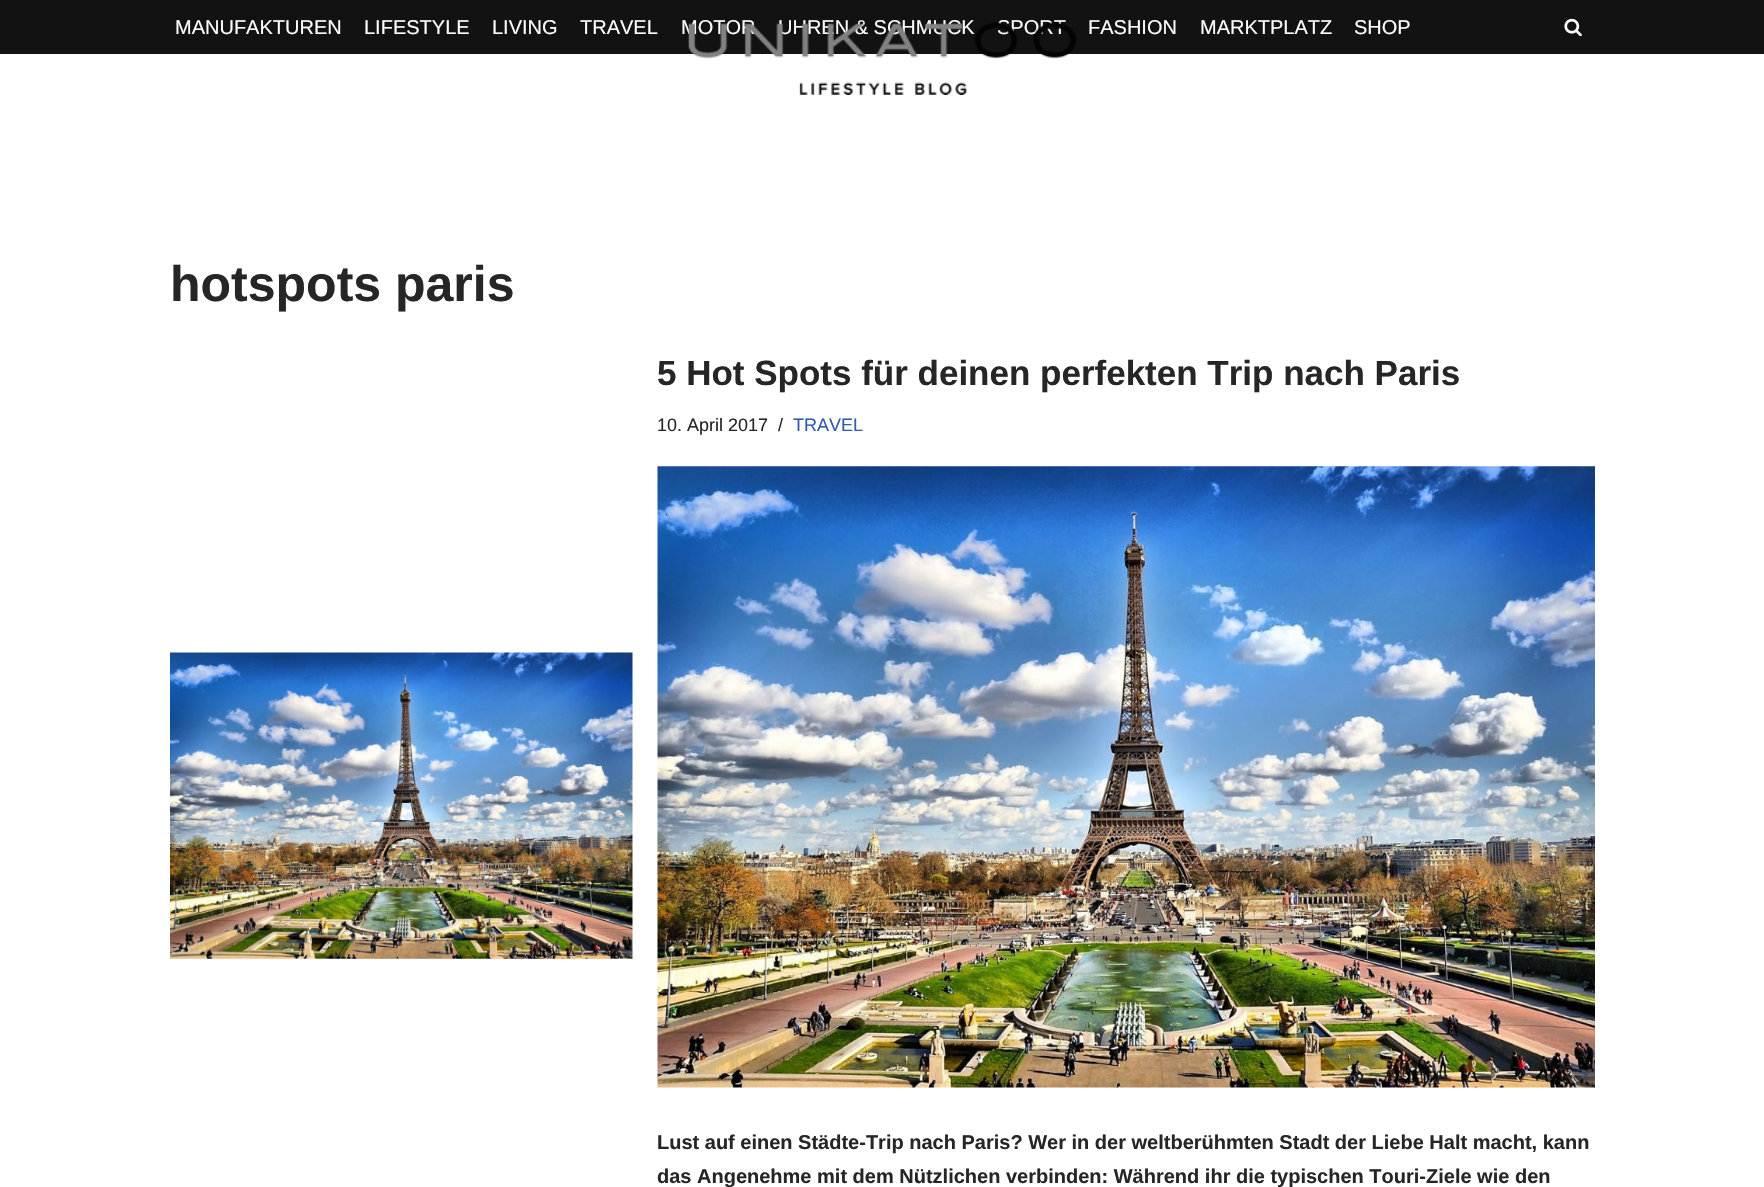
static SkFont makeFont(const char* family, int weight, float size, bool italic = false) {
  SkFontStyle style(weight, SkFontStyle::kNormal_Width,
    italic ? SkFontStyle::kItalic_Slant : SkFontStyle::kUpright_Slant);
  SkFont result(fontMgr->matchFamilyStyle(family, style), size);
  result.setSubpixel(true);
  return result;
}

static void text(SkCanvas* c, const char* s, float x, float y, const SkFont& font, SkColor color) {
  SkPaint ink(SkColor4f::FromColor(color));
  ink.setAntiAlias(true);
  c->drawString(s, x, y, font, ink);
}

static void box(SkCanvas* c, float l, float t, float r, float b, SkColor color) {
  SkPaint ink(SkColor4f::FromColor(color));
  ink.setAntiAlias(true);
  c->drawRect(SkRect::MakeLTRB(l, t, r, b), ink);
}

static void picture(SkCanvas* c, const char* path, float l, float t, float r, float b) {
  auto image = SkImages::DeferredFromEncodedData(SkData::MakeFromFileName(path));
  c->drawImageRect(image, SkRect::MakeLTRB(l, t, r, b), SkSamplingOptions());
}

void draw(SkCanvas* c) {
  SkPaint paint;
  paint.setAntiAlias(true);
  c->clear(0xffffffff);
  box(c, 0, 0, 1764, 54, 0xff121212);
  SkFont face1 = makeFont("Liberation Sans", 400, 20);
  text(c, "MANUFAKTUREN", 175, 34, face1, 0xffffffff);
  text(c, "LIFESTYLE", 364, 34, face1, 0xffffffff);
  text(c, "LIVING", 492, 34, face1, 0xffffffff);
  text(c, "TRAVEL", 580, 34, face1, 0xffffffff);
  text(c, "MOTOR", 681, 34, face1, 0xffffffff);
  text(c, "UHREN & SCHMUCK", 778, 34, face1, 0xffffffff);
  text(c, "SPORT", 997, 34, face1, 0xffffffff);
  text(c, "FASHION", 1088, 34, face1, 0xffffffff);
  text(c, "MARKTPLATZ", 1200, 34, face1, 0xffffffff);
  text(c, "SHOP", 1354, 34, face1, 0xffffffff);
  picture(c, "img_01.png", 1564, 18, 1582, 36);
  picture(c, "img_02.png", 688, 22, 1077, 95);
  SkFont face2 = makeFont("Liberation Sans", 700, 50);
  text(c, "hotspots paris", 170, 301, face2, 0xff272626);
  picture(c, "img_03.png", 170, 652, 633, 959);
  SkFont face3 = makeFont("Liberation Sans", 700, 35);
  text(c, "5 Hot Spots für deinen perfekten Trip nach Paris", 657, 385, face3, 0xff272626);
  SkFont face4 = makeFont("Liberation Sans", 400, 18);
  text(c, "10. April 2017", 657, 431, face4, 0xff272626);
  text(c, "/", 778, 431, face4, 0xff272626);
  text(c, "TRAVEL", 793, 431, face4, 0xff2f5aae);
  picture(c, "img_04.png", 657, 466, 1595, 1088);
  SkFont face5 = makeFont("Liberation Sans", 700, 20);
  text(c, "Lust auf einen Städte-Trip nach Paris? Wer in der weltberühmten Stadt der Liebe Halt macht, kann", 657, 1149, face5, 0xff272626);
  text(c, "das Angenehme mit dem Nützlichen verbinden: Während ihr die typischen Touri-Ziele wie den", 657, 1183, face5, 0xff272626);
}
